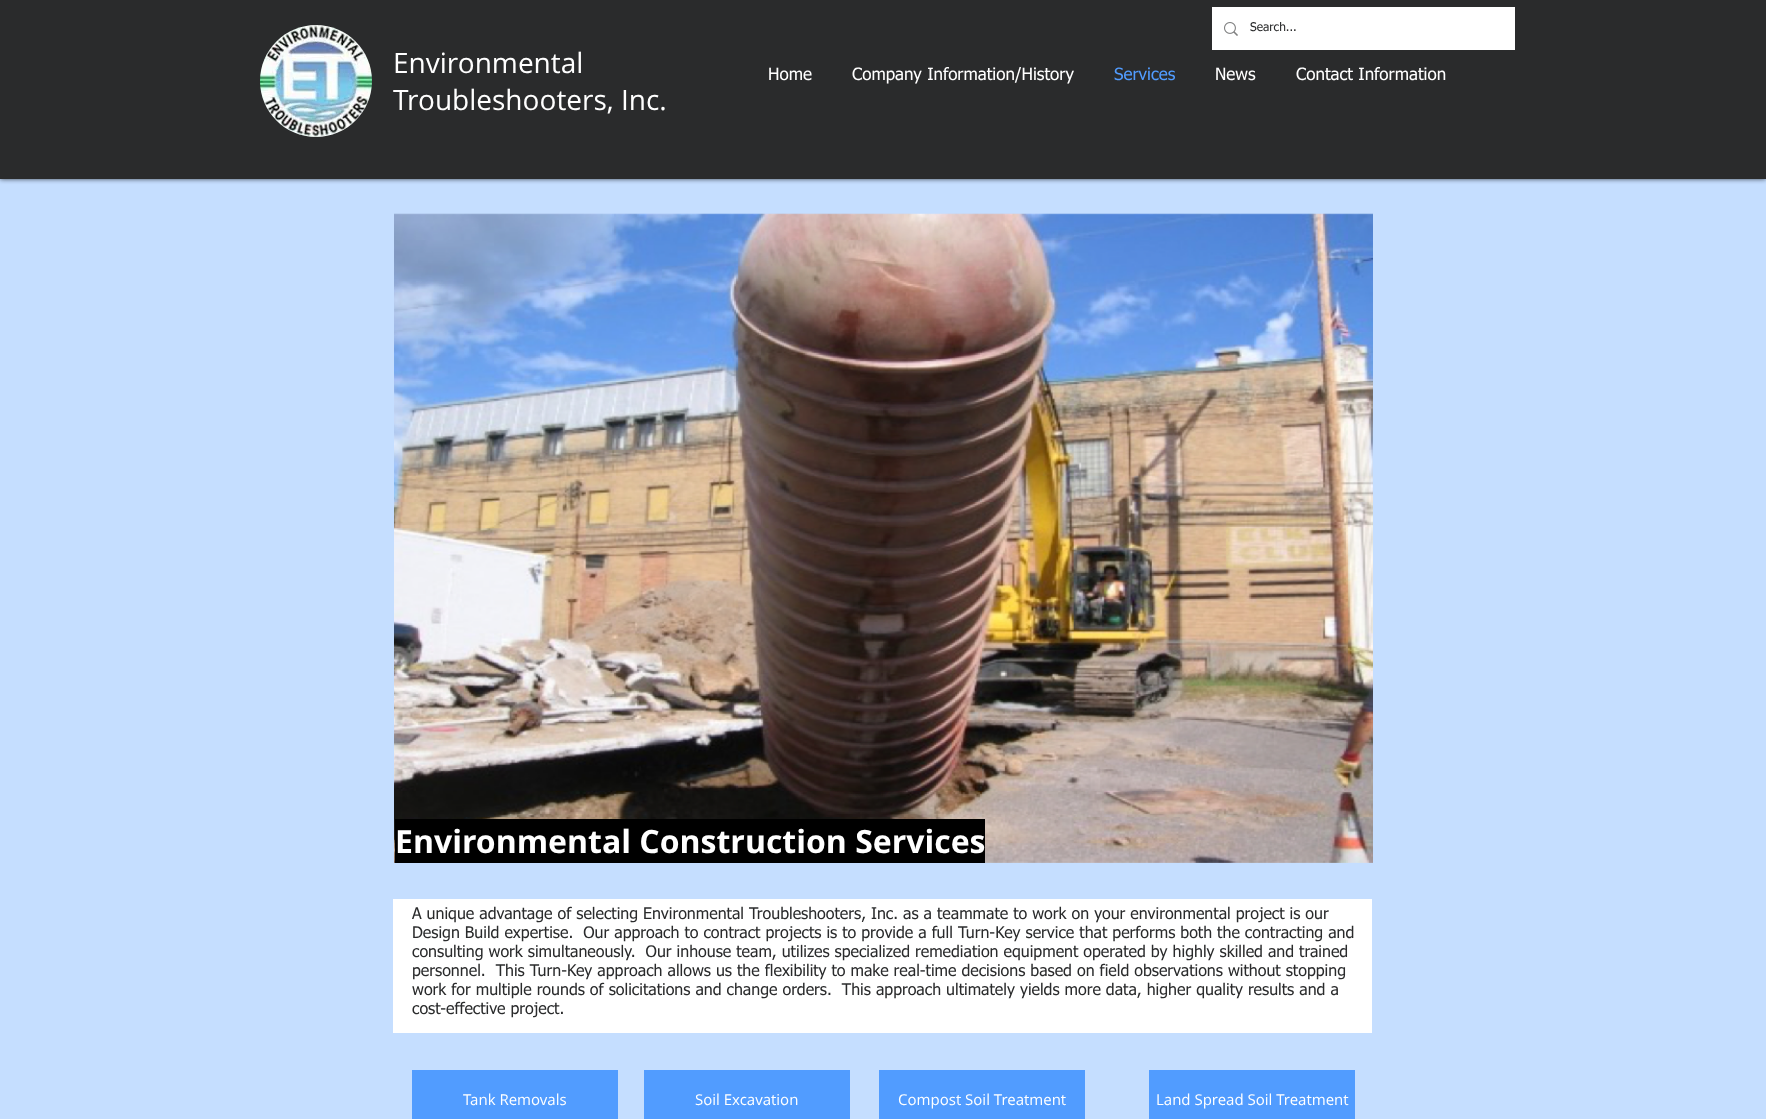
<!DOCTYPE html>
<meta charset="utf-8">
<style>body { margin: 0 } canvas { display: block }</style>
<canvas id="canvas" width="1766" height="1119"></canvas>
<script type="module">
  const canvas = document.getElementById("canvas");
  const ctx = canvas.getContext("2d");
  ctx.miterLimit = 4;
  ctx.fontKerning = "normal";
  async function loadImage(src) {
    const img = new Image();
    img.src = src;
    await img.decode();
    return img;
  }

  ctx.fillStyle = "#c5deff";
  ctx.fillRect(0, 0, 1766, 1119);
  ctx.fillStyle = "rgba(0, 0, 0, 0.7)";
  ctx.filter = "blur(2.5px)";
  ctx.beginPath();
  ctx.rect(0, 0, 1766, 179);
  ctx.fill();
  ctx.filter = "none";
  ctx.fillStyle = "#2a2b2c";
  ctx.fillRect(0, 0, 1766, 179);
  ctx.drawImage(await loadImage("img1.png"), 260, 25, 112, 112);
  ctx.font = "28px Open Sans";
  ctx.fillStyle = "#ffffff";
  ctx.fillText("Environmental", 393, 73);
  ctx.fillText("Troubleshooters, Inc.", 393, 110);
  ctx.fillRect(1212, 7, 303, 43);
  ctx.drawImage(await loadImage("img2.png"), 1224, 22, 14, 14);
  ctx.font = "12px tahoma";
  ctx.fillStyle = "#2a2b2c";
  ctx.fillText("Search...", 1250, 31);
  ctx.font = "17px tahoma";
  ctx.fillStyle = "#ffffff";
  ctx.fillText("Home", 768, 80);
  ctx.fillText("Company Information/History", 852, 80);
  ctx.fillStyle = "#519cff";
  ctx.fillText("Services", 1114, 80);
  ctx.fillStyle = "#ffffff";
  ctx.fillText("News", 1215, 80);
  ctx.fillText("Contact Information", 1296, 80);
  ctx.drawImage(await loadImage("img3.png"), 394, 213, 979, 650);
  ctx.fillStyle = "#000000";
  ctx.fillRect(395, 819, 590, 44);
  ctx.font = "bold 32px Open Sans";
  ctx.fillStyle = "#ffffff";
  ctx.fillText("Environmental Construction Services", 395, 853);
  ctx.fillRect(393, 899, 979, 134);
  ctx.font = "16px tahoma";
  ctx.fillStyle = "#2a2b2c";
  ctx.fillText("A unique advantage of selecting Environmental Troubleshooters, Inc. as a teammate to work on your environmental project is our", 412, 919);
  ctx.fillText("Design Build expertise.  Our approach to contract projects is to provide a full Turn-Key service that performs both the contracting and", 412, 938);
  ctx.fillText("consulting work simultaneously.  Our inhouse team, utilizes specialized remediation equipment operated by highly skilled and trained", 412, 957);
  ctx.fillText("personnel.  This Turn-Key approach allows us the flexibility to make real-time decisions based on field observations without stopping", 412, 976);
  ctx.fillText("work for multiple rounds of solicitations and change orders.  This approach ultimately yields more data, higher quality results and a", 412, 995);
  ctx.fillText("cost-effective project.", 412, 1014);
  ctx.fillStyle = "#519cff";
  ctx.fillRect(412, 1070, 206, 49);
  ctx.font = "15px Open Sans";
  ctx.fillStyle = "#ffffff";
  ctx.fillText("Tank Removals", 463, 1105);
  ctx.fillStyle = "#519cff";
  ctx.fillRect(644, 1070, 206, 49);
  ctx.fillStyle = "#ffffff";
  ctx.fillText("Soil Excavation", 695, 1105);
  ctx.fillStyle = "#519cff";
  ctx.fillRect(879, 1070, 206, 49);
  ctx.fillStyle = "#ffffff";
  ctx.fillText("Compost Soil Treatment", 898, 1105);
  ctx.fillStyle = "#519cff";
  ctx.fillRect(1149, 1070, 206, 49);
  ctx.fillStyle = "#ffffff";
  ctx.fillText("Land Spread Soil Treatment", 1156, 1105);
</script>
